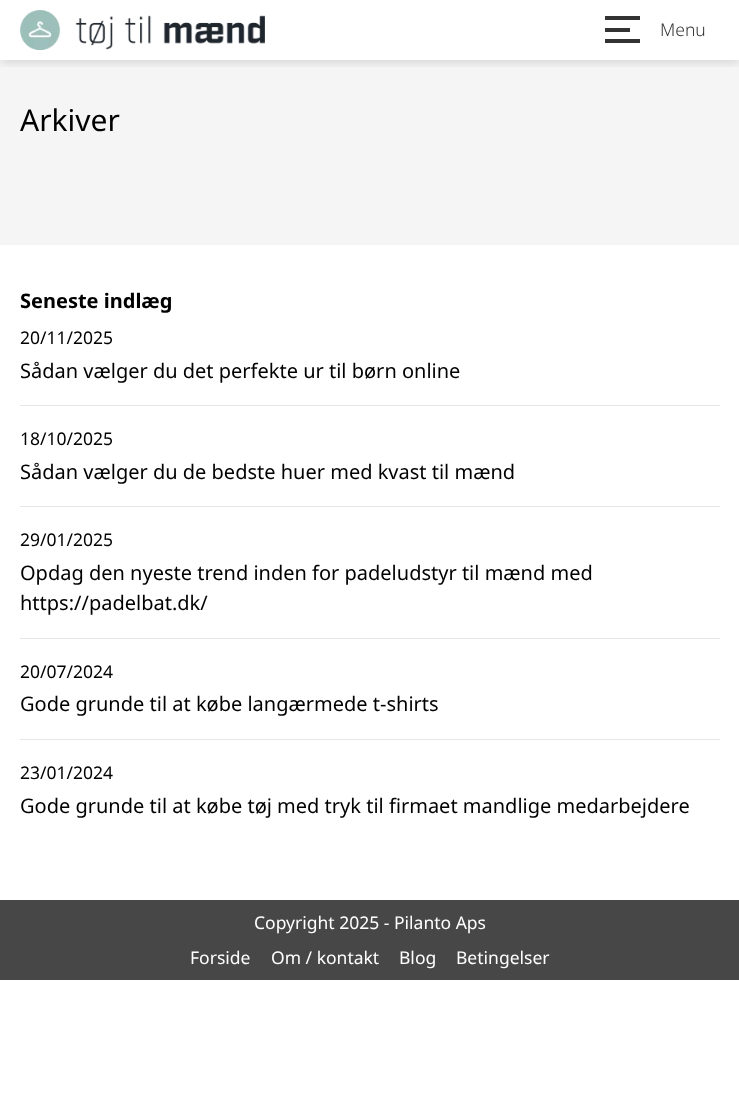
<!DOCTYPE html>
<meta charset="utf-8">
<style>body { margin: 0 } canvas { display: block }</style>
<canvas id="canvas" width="739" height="1117"></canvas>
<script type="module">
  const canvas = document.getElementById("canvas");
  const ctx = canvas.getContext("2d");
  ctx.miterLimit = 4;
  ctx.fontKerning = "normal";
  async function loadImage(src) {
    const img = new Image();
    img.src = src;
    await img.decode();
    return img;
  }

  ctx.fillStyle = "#ffffff";
  ctx.fillRect(0, 0, 739, 1117);
  ctx.fillStyle = "#f5f5f5";
  ctx.fillRect(0, 60, 739, 185);
  ctx.save();
  ctx.beginPath();
  ctx.rect(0, 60, 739, 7);
  ctx.clip();
  ctx.fillStyle = "rgba(0, 0, 0, 0.1)";
  ctx.filter = "blur(4px)";
  ctx.beginPath();
  ctx.rect(1, 6, 738, 58);
  ctx.fill();
  ctx.filter = "none";
  ctx.restore();
  ctx.drawImage(await loadImage("img1.png"), 20, 10, 245, 40);
  ctx.fillStyle = "#333333";
  ctx.fillRect(605, 16, 35, 4);
  ctx.fillRect(605, 28, 25, 4);
  ctx.fillRect(605, 39, 35, 4);
  ctx.font = "300 17.5px Noto Sans";
  ctx.fillText("Menu", 660, 36);
  ctx.font = "30px Noto Sans";
  ctx.fillStyle = "#000000";
  ctx.fillText("Arkiver", 20, 131);
  ctx.font = "bold 20px Noto Sans";
  ctx.fillText("Seneste indlæg", 20, 308);
  ctx.fillStyle = "#e5e7eb";
  ctx.fillRect(20, 405, 700, 1);
  ctx.font = "17.5px Noto Sans";
  ctx.fillStyle = "#000000";
  ctx.fillText("20/11/2025", 20, 344);
  ctx.font = "20px Noto Sans";
  ctx.fillText("Sådan vælger du det perfekte ur til børn online", 20, 378);
  ctx.fillStyle = "#e5e7eb";
  ctx.fillRect(20, 506, 700, 1);
  ctx.font = "17.5px Noto Sans";
  ctx.fillStyle = "#000000";
  ctx.fillText("18/10/2025", 20, 445);
  ctx.font = "20px Noto Sans";
  ctx.fillText("Sådan vælger du de bedste huer med kvast til mænd", 20, 479);
  ctx.fillStyle = "#e5e7eb";
  ctx.fillRect(20, 638, 700, 1);
  ctx.font = "17.5px Noto Sans";
  ctx.fillStyle = "#000000";
  ctx.fillText("29/01/2025", 20, 546);
  ctx.font = "20px Noto Sans";
  ctx.fillText("Opdag den nyeste trend inden for padeludstyr til mænd med", 20, 580);
  ctx.fillText("https://padelbat.dk/", 20, 610);
  ctx.fillStyle = "#e5e7eb";
  ctx.fillRect(20, 739, 700, 1);
  ctx.font = "17.5px Noto Sans";
  ctx.fillStyle = "#000000";
  ctx.fillText("20/07/2024", 20, 678);
  ctx.font = "20px Noto Sans";
  ctx.fillText("Gode grunde til at købe langærmede t-shirts", 20, 711);
  ctx.font = "17.5px Noto Sans";
  ctx.fillText("23/01/2024", 20, 779);
  ctx.font = "20px Noto Sans";
  ctx.fillText("Gode grunde til at købe tøj med tryk til firmaet mandlige medarbejdere", 20, 813);
  ctx.fillStyle = "#474747";
  ctx.fillRect(0, 900, 739, 80);
  ctx.font = "17.5px Noto Sans";
  ctx.fillStyle = "#ffffff";
  ctx.fillText("Copyright 2025 - Pilanto Aps", 254, 929);
  ctx.fillText("Forside", 190, 964);
  ctx.fillText("Om / kontakt", 271, 964);
  ctx.fillText("Blog", 399, 964);
  ctx.fillText("Betingelser", 456, 964);
</script>
